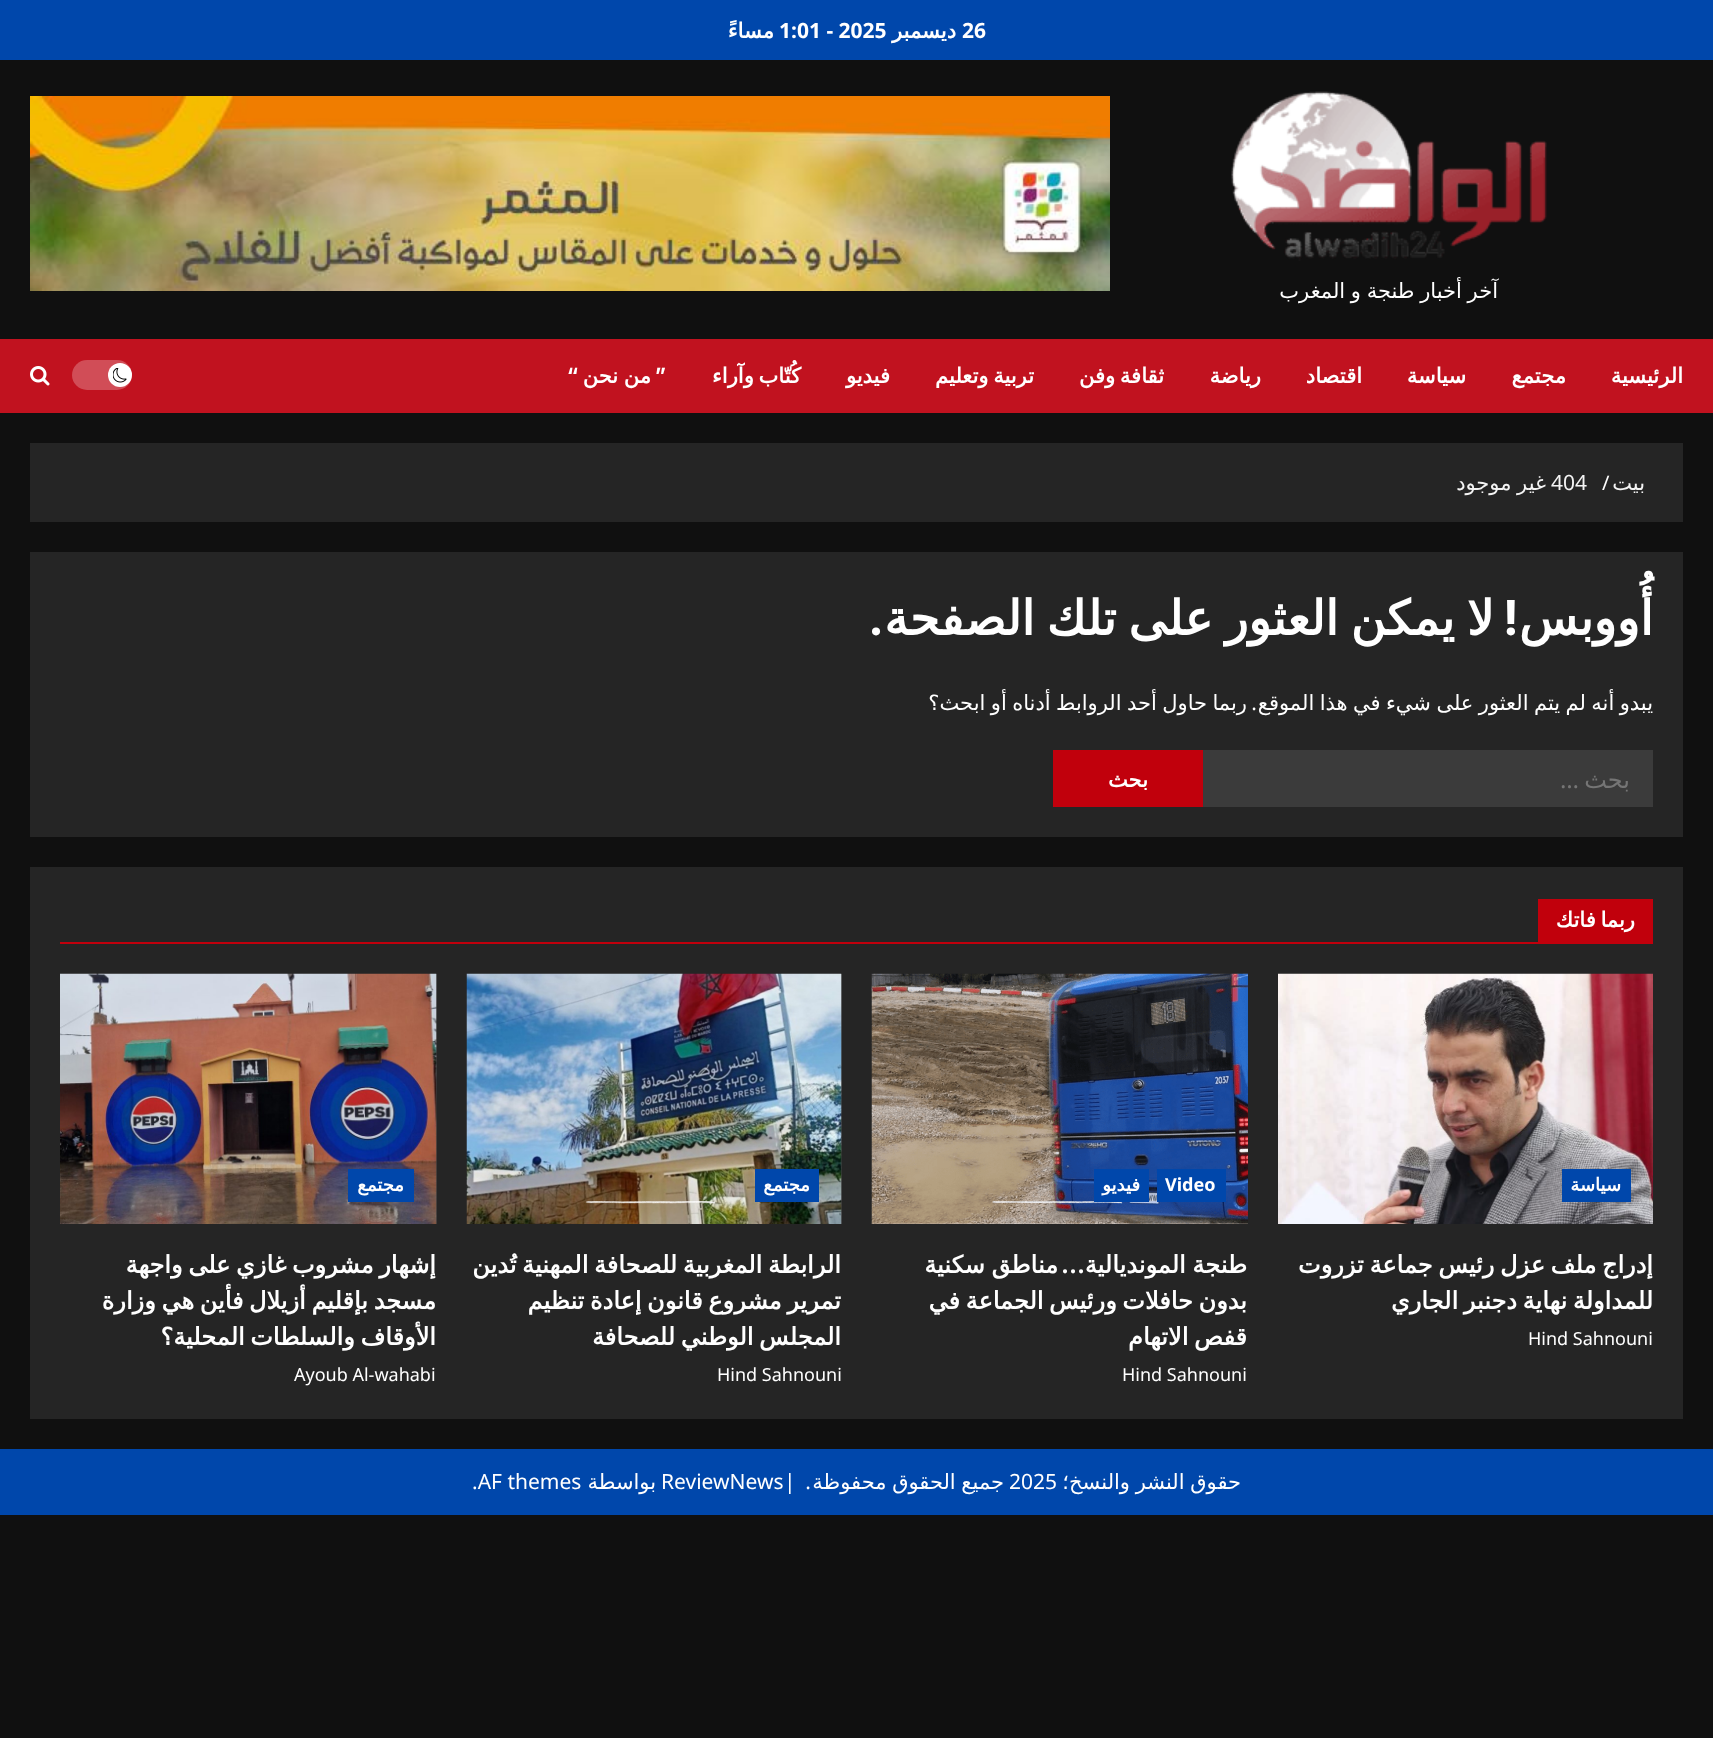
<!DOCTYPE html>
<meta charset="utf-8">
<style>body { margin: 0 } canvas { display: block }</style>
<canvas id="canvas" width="1713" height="1738"></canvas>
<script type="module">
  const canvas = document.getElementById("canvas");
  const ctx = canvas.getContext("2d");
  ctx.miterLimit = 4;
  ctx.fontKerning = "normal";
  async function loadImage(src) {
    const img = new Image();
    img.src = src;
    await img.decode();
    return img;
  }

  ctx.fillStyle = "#101010";
  ctx.fillRect(0, 0, 1713, 1738);
  ctx.fillStyle = "#0047ab";
  ctx.fillRect(0, 0, 1713, 60);
  ctx.font = "bold 21px Noto Sans";
  ctx.fillStyle = "#ffffff";
  ctx.fillText("26", 962, 38);
  ctx.direction = "rtl";
  ctx.font = "bold 21px DejaVu Sans";
  ctx.fillText("ديسمبر", 956, 38);
  ctx.direction = "ltr";
  ctx.font = "bold 21px Noto Sans";
  ctx.fillText("1:01 - 2025", 779, 38);
  ctx.direction = "rtl";
  ctx.font = "bold 21px DejaVu Sans";
  ctx.fillText("مساءً", 774, 38);
  ctx.drawImage(await loadImage("img1.png"), 1231, 91, 316, 170);
  ctx.wordSpacing = "-1px";
  ctx.font = "21px DejaVu Sans";
  ctx.fillText("آخر أخبار طنجة و المغرب", 1498, 298);
  ctx.drawImage(await loadImage("img2.png"), 30, 96, 1080, 195);
  ctx.fillStyle = "#c1121f";
  ctx.fillRect(0, 339, 1713, 74);
  ctx.wordSpacing = "0px";
  ctx.font = "bold 21px DejaVu Sans";
  ctx.fillStyle = "#ffffff";
  ctx.fillText("الرئيسية", 1683, 383);
  ctx.fillText("مجتمع", 1566, 383);
  ctx.fillText("سياسة", 1466, 383);
  ctx.fillText("اقتصاد", 1362, 383);
  ctx.fillText("رياضة", 1261, 383);
  ctx.wordSpacing = "-2px";
  ctx.fillText("ثقافة وفن", 1164, 383);
  ctx.fillText("تربية وتعليم", 1034, 383);
  ctx.wordSpacing = "0px";
  ctx.fillText("فيديو", 890, 383);
  ctx.wordSpacing = "-2px";
  ctx.fillText("كُتّاب وآراء", 801, 383);
  ctx.wordSpacing = "0px";
  ctx.font = "bold 21px Inter";
  ctx.fillText("”", 666, 383);
  ctx.fillText("“", 578, 383);
  ctx.wordSpacing = "-1px";
  ctx.font = "bold 21px DejaVu Sans";
  ctx.fillText("من نحن", 651, 383);
  ctx.fillStyle = "#d14d57";
  ctx.beginPath();
  ctx.roundRect(72, 360, 60, 30, 15);
  ctx.fill();
  ctx.fillStyle = "#ffffff";
  ctx.beginPath();
  ctx.arc(120, 375, 12, 0, Math.PI * 2);
  ctx.fill();
  ctx.drawImage(await loadImage("img3.png"), 113, 368, 14, 15);
  ctx.drawImage(await loadImage("img4.png"), 30, 366, 20, 20);
  ctx.fillStyle = "#252525";
  ctx.fillRect(30, 443, 1653, 79);
  ctx.wordSpacing = "0px";
  ctx.font = "21px DejaVu Sans";
  ctx.fillStyle = "#f4f4f4";
  ctx.fillText("بيت", 1645, 490);
  ctx.direction = "ltr";
  ctx.font = "20px Noto Sans";
  ctx.fillStyle = "#ffffff";
  ctx.fillText("/", 1602, 490);
  ctx.font = "21px Noto Sans";
  ctx.fillStyle = "#f4f4f4";
  ctx.fillText("404", 1551, 490);
  ctx.wordSpacing = "-1px";
  ctx.direction = "rtl";
  ctx.font = "21px DejaVu Sans";
  ctx.fillText("غير موجود", 1546, 490);
  ctx.fillStyle = "#252525";
  ctx.fillRect(30, 552, 1653, 285);
  ctx.wordSpacing = "0px";
  ctx.font = "bold 48px DejaVu Sans";
  ctx.fillStyle = "#ffffff";
  ctx.fillText("أُووبس", 1653, 635);
  ctx.font = "bold 48px Inter";
  ctx.fillText("!", 1519, 635);
  ctx.wordSpacing = "-3.25px";
  ctx.font = "bold 48px DejaVu Sans";
  ctx.fillText("لا يمكن العثور على تلك الصفحة", 1494, 635);
  ctx.wordSpacing = "0px";
  ctx.font = "bold 48px Inter";
  ctx.fillText(".", 884, 635);
  ctx.wordSpacing = "-1.25px";
  ctx.font = "21px DejaVu Sans";
  ctx.fillText("يبدو أنه لم يتم العثور على شيء في هذا الموقع", 1653, 710);
  ctx.wordSpacing = "0px";
  ctx.font = "21px Noto Sans";
  ctx.fillText(".", 1257, 710);
  ctx.wordSpacing = "-1.25px";
  ctx.font = "21px DejaVu Sans";
  ctx.fillText("ربما حاول أحد الروابط أدناه أو ابحث؟", 1247, 710);
  ctx.fillStyle = "#3b3b3b";
  ctx.fillRect(1203, 750, 450, 57);
  ctx.wordSpacing = "0px";
  ctx.font = "24px DejaVu Sans";
  ctx.fillStyle = "#757575";
  ctx.fillText("بحث", 1630, 788);
  ctx.font = "24px Noto Sans";
  ctx.fillText("…", 1579, 788);
  ctx.fillStyle = "#c1000c";
  ctx.fillRect(1053, 750, 150, 57);
  ctx.font = "bold 21px DejaVu Sans";
  ctx.fillStyle = "#ffffff";
  ctx.fillText("بحث", 1148, 787);
  ctx.fillStyle = "#252525";
  ctx.fillRect(30, 867, 1653, 552);
  ctx.fillStyle = "#c1000c";
  ctx.fillRect(60, 942, 1593, 2);
  ctx.fillRect(1538, 899, 115, 43);
  ctx.wordSpacing = "-2px";
  ctx.fillStyle = "#ffffff";
  ctx.fillText("ربما فاتك", 1635, 927);
  ctx.drawImage(await loadImage("img5.png"), 1278, 973, 375, 251);
  ctx.fillStyle = "#0047ab";
  ctx.fillRect(1562, 1169, 69, 33);
  ctx.wordSpacing = "0px";
  ctx.font = "bold 18px DejaVu Sans";
  ctx.fillStyle = "#ffffff";
  ctx.fillText("سياسة", 1621, 1191);
  ctx.wordSpacing = "-2px";
  ctx.font = "bold 24px DejaVu Sans";
  ctx.fillText("إدراج ملف عزل رئيس جماعة تزروت", 1653, 1273);
  ctx.fillText("للمداولة نهاية دجنبر الجاري", 1653, 1309);
  ctx.wordSpacing = "0px";
  ctx.direction = "ltr";
  ctx.font = "18px Noto Sans";
  ctx.fillText("Hind Sahnouni", 1528, 1345);
  ctx.drawImage(await loadImage("img6.png"), 871, 973, 377, 251);
  ctx.fillStyle = "#0047ab";
  ctx.fillRect(1157, 1169, 69, 33);
  ctx.font = "bold 18px Noto Sans";
  ctx.fillStyle = "#ffffff";
  ctx.fillText("Video", 1165, 1191);
  ctx.fillStyle = "#0047ab";
  ctx.fillRect(1094, 1169, 55, 33);
  ctx.direction = "rtl";
  ctx.font = "bold 18px DejaVu Sans";
  ctx.fillStyle = "#ffffff";
  ctx.fillText("فيديو", 1140, 1191);
  ctx.wordSpacing = "-1px";
  ctx.font = "bold 24px DejaVu Sans";
  ctx.fillText("طنجة المونديالية", 1247, 1273);
  ctx.wordSpacing = "0px";
  ctx.font = "bold 24px Inter";
  ctx.fillText("…", 1085, 1273);
  ctx.wordSpacing = "-1px";
  ctx.font = "bold 24px DejaVu Sans";
  ctx.fillText("مناطق سكنية", 1058, 1273);
  ctx.wordSpacing = "-2px";
  ctx.fillText("بدون حافلات ورئيس الجماعة في", 1247, 1309);
  ctx.fillText("قفص الاتهام", 1247, 1345);
  ctx.wordSpacing = "0px";
  ctx.direction = "ltr";
  ctx.font = "18px Noto Sans";
  ctx.fillText("Hind Sahnouni", 1122, 1381);
  ctx.fillStyle = "#3a3a3a";
  ctx.fillRect(841, 974, 1, 250);
  ctx.drawImage(await loadImage("img7.png"), 466, 973, 376, 251);
  ctx.fillStyle = "#0047ab";
  ctx.fillRect(755, 1169, 64, 33);
  ctx.direction = "rtl";
  ctx.font = "bold 18px DejaVu Sans";
  ctx.fillStyle = "#ffffff";
  ctx.fillText("مجتمع", 810, 1191);
  ctx.wordSpacing = "-2px";
  ctx.font = "bold 24px DejaVu Sans";
  ctx.fillText("الرابطة المغربية للصحافة المهنية تُدين", 841, 1273);
  ctx.fillText("تمرير مشروع قانون إعادة تنظيم", 841, 1309);
  ctx.fillText("المجلس الوطني للصحافة", 841, 1345);
  ctx.wordSpacing = "0px";
  ctx.direction = "ltr";
  ctx.font = "18px Noto Sans";
  ctx.fillText("Hind Sahnouni", 717, 1381);
  ctx.fillStyle = "#3a3a3a";
  ctx.fillRect(436, 974, 1, 250);
  ctx.drawImage(await loadImage("img8.png"), 60, 973, 377, 251);
  ctx.fillStyle = "#0047ab";
  ctx.fillRect(348, 1169, 66, 33);
  ctx.direction = "rtl";
  ctx.font = "bold 18px DejaVu Sans";
  ctx.fillStyle = "#ffffff";
  ctx.fillText("مجتمع", 404, 1191);
  ctx.wordSpacing = "-2px";
  ctx.font = "bold 24px DejaVu Sans";
  ctx.fillText("إشهار مشروب غازي على واجهة", 436, 1273);
  ctx.fillText("مسجد بإقليم أزيلال فأين هي وزارة", 436, 1309);
  ctx.fillText("الأوقاف والسلطات المحلية؟", 436, 1345);
  ctx.wordSpacing = "0px";
  ctx.direction = "ltr";
  ctx.font = "18px Noto Sans";
  ctx.fillText("Ayoub Al-wahabi", 294, 1381);
  ctx.fillStyle = "#0047ab";
  ctx.fillRect(0, 1449, 1713, 66);
  ctx.wordSpacing = "-1px";
  ctx.direction = "rtl";
  ctx.font = "21px DejaVu Sans";
  ctx.fillStyle = "#ffffff";
  ctx.fillText("حقوق النشر والنسخ؛", 1241, 1489);
  ctx.wordSpacing = "0px";
  ctx.direction = "ltr";
  ctx.font = "21px Noto Sans";
  ctx.fillText("2025", 1009, 1489);
  ctx.wordSpacing = "-1px";
  ctx.direction = "rtl";
  ctx.font = "21px DejaVu Sans";
  ctx.fillText("جميع الحقوق محفوظة", 1004, 1489);
  ctx.wordSpacing = "0px";
  ctx.font = "21px Noto Sans";
  ctx.fillText(".", 811, 1489);
  ctx.direction = "ltr";
  ctx.fillText("|", 784, 1489);
  ctx.fillText("ReviewNews", 661, 1489);
  ctx.direction = "rtl";
  ctx.font = "21px DejaVu Sans";
  ctx.fillText("بواسطة", 656, 1489);
  ctx.direction = "ltr";
  ctx.font = "21px Noto Sans";
  ctx.fillText(".AF themes", 472, 1489);
</script>
